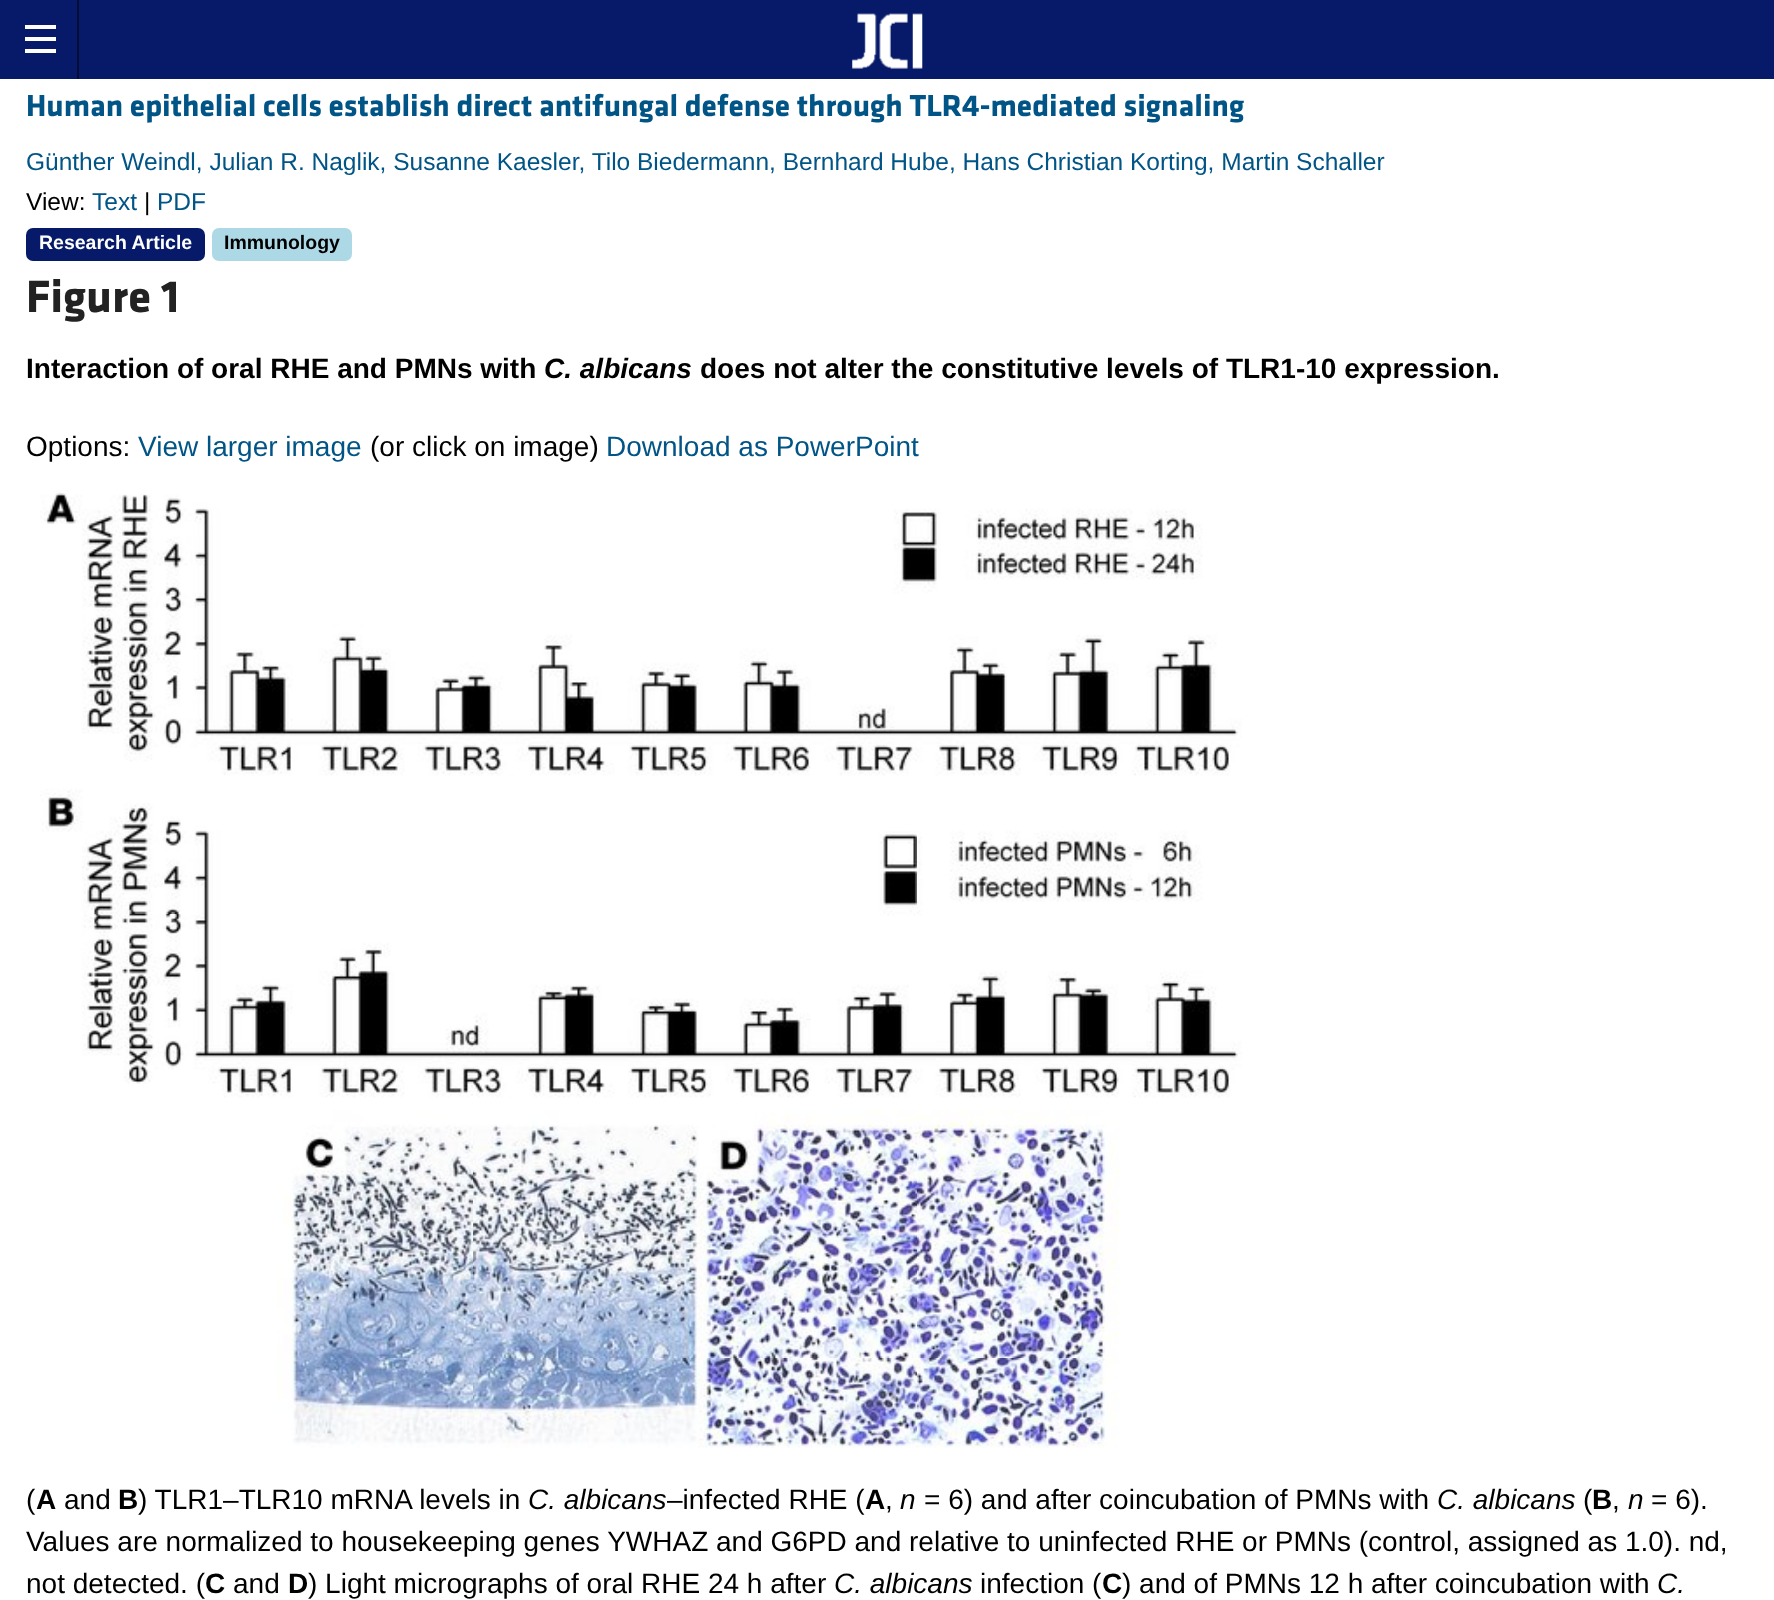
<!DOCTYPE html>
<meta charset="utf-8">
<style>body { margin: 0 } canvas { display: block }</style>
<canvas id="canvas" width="1774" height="1600"></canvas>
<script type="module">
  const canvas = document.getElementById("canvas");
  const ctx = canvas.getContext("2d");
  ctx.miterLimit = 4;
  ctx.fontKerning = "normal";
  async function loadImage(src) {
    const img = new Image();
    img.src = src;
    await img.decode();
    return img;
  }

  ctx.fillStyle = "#ffffff";
  ctx.fillRect(0, 0, 1774, 1600);
  ctx.fillStyle = "#071a69";
  ctx.fillRect(0, 0, 1774, 79);
  ctx.fillStyle = "#040d35";
  ctx.fillRect(77, 0, 2, 79);
  ctx.fillStyle = "#ffffff";
  ctx.fillRect(25, 49, 31, 4);
  ctx.fillRect(25, 37, 31, 4);
  ctx.fillRect(25, 25, 31, 4);
  ctx.drawImage(await loadImage("img1.png"), 852, 13, 71, 56);
  ctx.font = "bold 31.5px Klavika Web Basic";
  ctx.fillStyle = "#015486";
  ctx.fillText("Human epithelial cells establish direct antifungal defense through TLR4-mediated signaling", 26, 116);
  ctx.font = "24.5px Liberation Sans";
  ctx.fillText("Günther Weindl, Julian R. Naglik, Susanne Kaesler, Tilo Biedermann, Bernhard Hube, Hans Christian Korting, Martin Schaller", 26, 170);
  ctx.fillStyle = "#000000";
  ctx.fillText("View:", 26, 210);
  ctx.fillStyle = "#015486";
  ctx.fillText("Text", 92, 210);
  ctx.fillStyle = "#000000";
  ctx.fillText("|", 144, 210);
  ctx.fillStyle = "#015486";
  ctx.fillText("PDF", 157, 210);
  ctx.fillStyle = "#071a69";
  ctx.beginPath();
  ctx.roundRect(26, 228, 179, 33, 7);
  ctx.fill();
  ctx.font = "bold 19.5px Liberation Sans";
  ctx.fillStyle = "#ffffff";
  ctx.fillText("Research Article", 39, 249);
  ctx.fillStyle = "#add8e6";
  ctx.beginPath();
  ctx.roundRect(212, 228, 140, 33, 7);
  ctx.fill();
  ctx.fillStyle = "#000000";
  ctx.fillText("Immunology", 224, 249);
  ctx.font = "bold 47px Klavika Web Basic";
  ctx.fillStyle = "#222222";
  ctx.fillText("Figure 1", 26, 312);
  ctx.font = "bold 28px Liberation Sans";
  ctx.fillStyle = "#000000";
  ctx.fillText("Interaction of oral RHE and PMNs with", 26, 378);
  ctx.font = "italic bold 28px Liberation Sans";
  ctx.fillText("C. albicans", 544, 378);
  ctx.font = "bold 28px Liberation Sans";
  ctx.fillText("does not alter the constitutive levels of TLR1-10 expression.", 700, 378);
  ctx.font = "28px Liberation Sans";
  ctx.fillText("Options:", 26, 456);
  ctx.fillStyle = "#015486";
  ctx.fillText("View larger image", 138, 456);
  ctx.fillStyle = "#000000";
  ctx.fillText("(or click on image)", 370, 456);
  ctx.fillStyle = "#015486";
  ctx.fillText("Download as PowerPoint", 606, 456);
  ctx.drawImage(await loadImage("img2.png"), 40, 490, 1202, 958);
  ctx.fillStyle = "#000000";
  ctx.fillText("(", 26, 1509);
  ctx.font = "bold 28px Liberation Sans";
  ctx.fillText("A", 36, 1509);
  ctx.font = "28px Liberation Sans";
  ctx.fillText("and", 64, 1509);
  ctx.font = "bold 28px Liberation Sans";
  ctx.fillText("B", 118, 1509);
  ctx.font = "28px Liberation Sans";
  ctx.fillText(") TLR1–TLR10 mRNA levels in", 138, 1509);
  ctx.font = "italic 28px Liberation Sans";
  ctx.fillText("C. albicans", 528, 1509);
  ctx.font = "28px Liberation Sans";
  ctx.fillText("–infected RHE (", 667, 1509);
  ctx.font = "bold 28px Liberation Sans";
  ctx.fillText("A", 865, 1509);
  ctx.font = "28px Liberation Sans";
  ctx.fillText(",", 885, 1509);
  ctx.font = "italic 28px Liberation Sans";
  ctx.fillText("n", 900, 1509);
  ctx.font = "28px Liberation Sans";
  ctx.fillText("= 6) and after coincubation of PMNs with", 924, 1509);
  ctx.font = "italic 28px Liberation Sans";
  ctx.fillText("C. albicans", 1437, 1509);
  ctx.font = "28px Liberation Sans";
  ctx.fillText("(", 1583, 1509);
  ctx.font = "bold 28px Liberation Sans";
  ctx.fillText("B", 1592, 1509);
  ctx.font = "28px Liberation Sans";
  ctx.fillText(",", 1612, 1509);
  ctx.font = "italic 28px Liberation Sans";
  ctx.fillText("n", 1628, 1509);
  ctx.font = "28px Liberation Sans";
  ctx.fillText("= 6).", 1651, 1509);
  ctx.fillText("Values are normalized to housekeeping genes YWHAZ and G6PD and relative to uninfected RHE or PMNs (control, assigned as 1.0). nd,", 26, 1551);
  ctx.fillText("not detected. (", 26, 1593);
  ctx.font = "bold 28px Liberation Sans";
  ctx.fillText("C", 205, 1593);
  ctx.font = "28px Liberation Sans";
  ctx.fillText("and", 233, 1593);
  ctx.font = "bold 28px Liberation Sans";
  ctx.fillText("D", 288, 1593);
  ctx.font = "28px Liberation Sans";
  ctx.fillText(") Light micrographs of oral RHE 24 h after", 308, 1593);
  ctx.font = "italic 28px Liberation Sans";
  ctx.fillText("C. albicans", 834, 1593);
  ctx.font = "28px Liberation Sans";
  ctx.fillText("infection (", 980, 1593);
  ctx.font = "bold 28px Liberation Sans";
  ctx.fillText("C", 1102, 1593);
  ctx.font = "28px Liberation Sans";
  ctx.fillText(") and of PMNs 12 h after coincubation with", 1122, 1593);
  ctx.font = "italic 28px Liberation Sans";
  ctx.fillText("C.", 1657, 1593);
</script>
